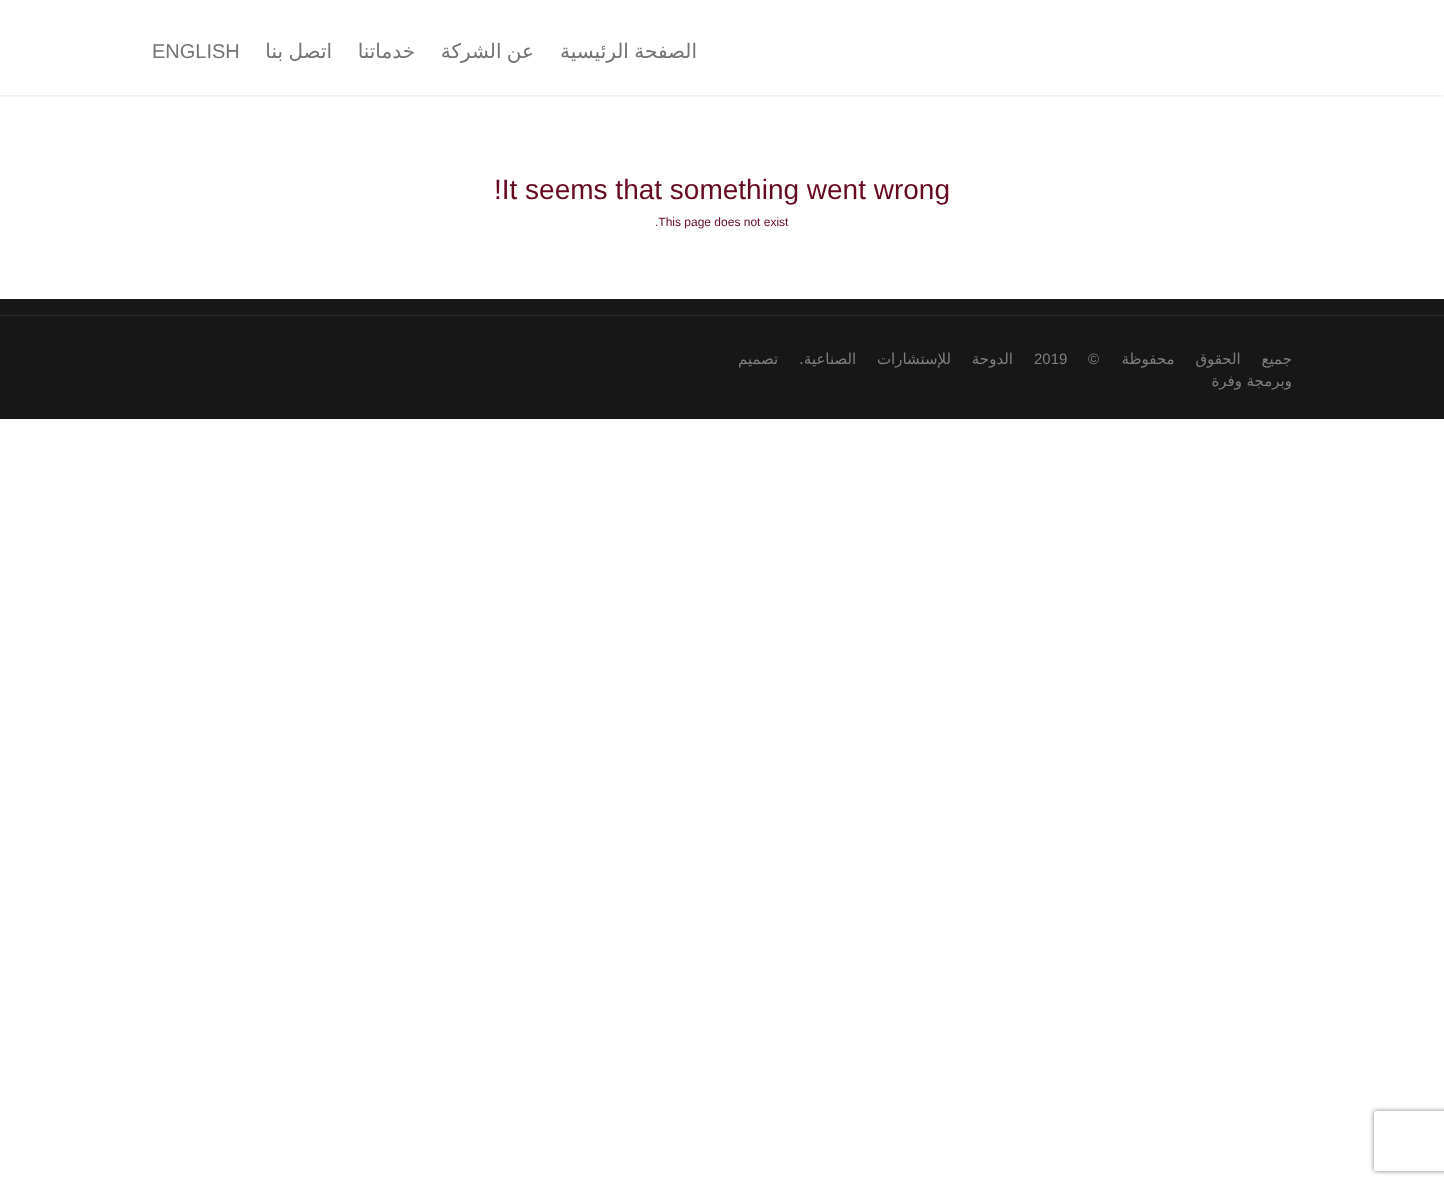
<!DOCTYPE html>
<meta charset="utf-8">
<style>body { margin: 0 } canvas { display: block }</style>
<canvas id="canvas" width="1444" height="1185"></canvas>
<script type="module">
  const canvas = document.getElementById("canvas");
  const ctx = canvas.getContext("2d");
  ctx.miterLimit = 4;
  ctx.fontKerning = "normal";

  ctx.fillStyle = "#ffffff";
  ctx.fillRect(0, 0, 1444, 1185);
  ctx.save();
  ctx.beginPath();
  ctx.rect(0, 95, 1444, 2);
  ctx.clip();
  ctx.fillStyle = "rgba(0, 0, 0, 0.15)";
  ctx.filter = "blur(2px)";
  ctx.beginPath();
  ctx.rect(-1, 0, 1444, 95);
  ctx.fill();
  ctx.filter = "none";
  ctx.restore();
  ctx.wordSpacing = "-1px";
  ctx.direction = "rtl";
  ctx.font = "20px DejaVu Sans";
  ctx.fillStyle = "#737373";
  ctx.fillText("الصفحة الرئيسية", 697, 58);
  ctx.fillText("عن الشركة", 534, 58);
  ctx.wordSpacing = "0px";
  ctx.fillText("خدماتنا", 415, 58);
  ctx.wordSpacing = "-1px";
  ctx.fillText("اتصل بنا", 332, 58);
  ctx.wordSpacing = "0px";
  ctx.direction = "ltr";
  ctx.font = "20px Liberation Sans";
  ctx.fillText("ENGLISH", 152, 58);
  ctx.font = "28px Liberation Sans";
  ctx.fillStyle = "#670821";
  ctx.fillText("!It seems that something went wrong", 494, 199);
  ctx.font = "12px Liberation Sans";
  ctx.fillText(".This page does not exist", 655, 226);
  ctx.fillStyle = "#171717";
  ctx.fillRect(0, 299, 1444, 120);
  ctx.fillStyle = "#2e2e2e";
  ctx.fillRect(0, 315, 1444, 1);
  ctx.wordSpacing = "16px";
  ctx.direction = "rtl";
  ctx.font = "15px DejaVu Sans";
  ctx.fillStyle = "#7f7f7f";
  ctx.fillText("جميع الحقوق محفوظة", 1292, 364);
  ctx.wordSpacing = "0px";
  ctx.direction = "ltr";
  ctx.font = "15px Liberation Sans";
  ctx.fillText("©", 1088, 364);
  ctx.fillText("2019", 1034, 364);
  ctx.wordSpacing = "16px";
  ctx.direction = "rtl";
  ctx.font = "15px DejaVu Sans";
  ctx.fillText("الدوحة للإستشارات الصناعية. تصميم", 1013, 364);
  ctx.wordSpacing = "0px";
  ctx.fillText("وبرمجة", 1292, 386);
  ctx.fillText("وفرة", 1242, 386);
  ctx.save();
  ctx.beginPath();
  ctx.moveTo(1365, 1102);
  ctx.lineTo(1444, 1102);
  ctx.lineTo(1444, 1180);
  ctx.lineTo(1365, 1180);
  ctx.closePath();
  ctx.moveTo(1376, 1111);
  ctx.lineTo(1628, 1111);
  ctx.bezierCurveTo(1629, 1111, 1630, 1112, 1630, 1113);
  ctx.lineTo(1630, 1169);
  ctx.bezierCurveTo(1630, 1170, 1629, 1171, 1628, 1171);
  ctx.lineTo(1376, 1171);
  ctx.bezierCurveTo(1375, 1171, 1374, 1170, 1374, 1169);
  ctx.lineTo(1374, 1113);
  ctx.bezierCurveTo(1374, 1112, 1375, 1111, 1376, 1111);
  ctx.closePath();
  ctx.clip("evenodd");
  ctx.fillStyle = "#808080";
  ctx.filter = "blur(2.5px)";
  ctx.beginPath();
  ctx.roundRect(1374, 1111, 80, 60, 2);
  ctx.fill();
  ctx.filter = "none";
  ctx.restore();
</script>
